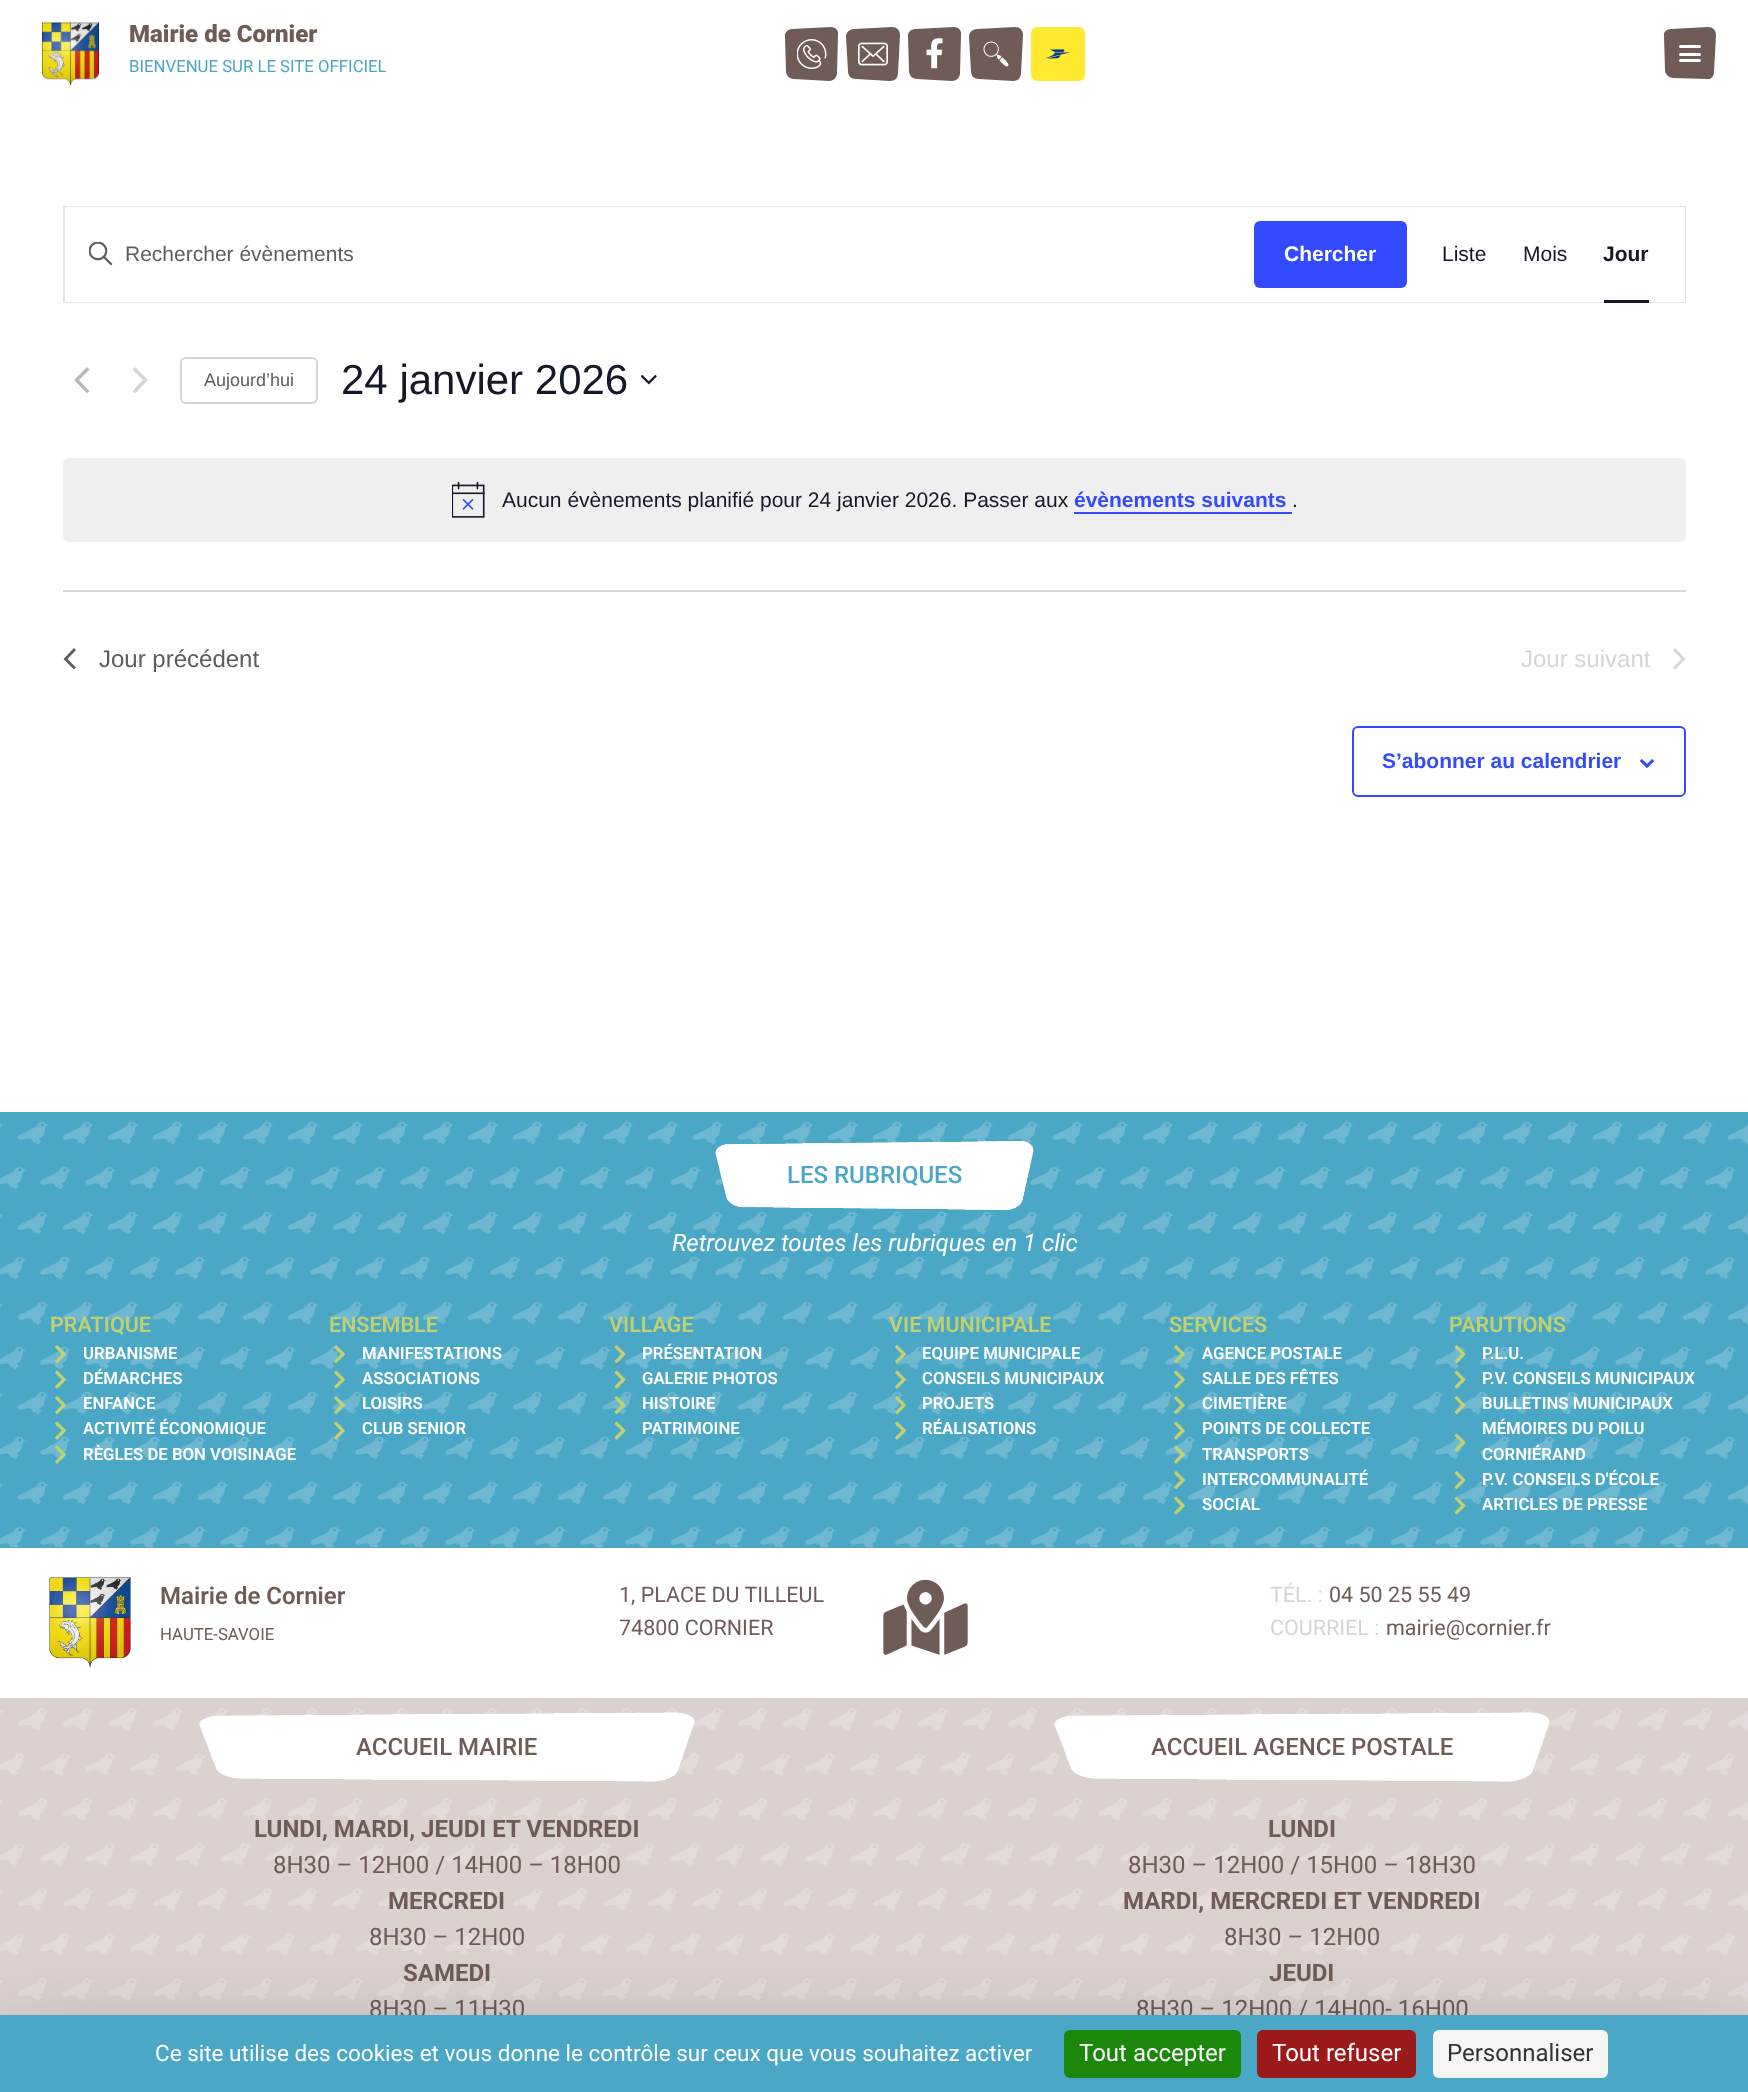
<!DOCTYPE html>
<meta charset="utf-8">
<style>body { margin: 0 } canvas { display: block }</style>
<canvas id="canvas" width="1748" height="2092"></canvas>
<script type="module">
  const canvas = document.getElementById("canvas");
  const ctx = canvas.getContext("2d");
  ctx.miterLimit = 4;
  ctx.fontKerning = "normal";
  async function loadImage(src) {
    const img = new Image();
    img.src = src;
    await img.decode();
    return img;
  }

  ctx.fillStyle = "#ffffff";
  ctx.fillRect(0, 0, 1748, 2092);
  ctx.drawImage(await loadImage("img1.png"), 42, 22, 57, 64);
  ctx.font = "900 24px Roboto";
  ctx.fillStyle = "#6f5c57";
  ctx.fillText("Mairie de Cornier", 129, 42);
  ctx.font = "16.75px Roboto";
  ctx.fillStyle = "#4ba7c6";
  ctx.fillText("BIENVENUE SUR LE SITE OFFICIEL", 129, 72);
  ctx.fillStyle = "#6f5c57";
  ctx.beginPath();
  ctx.moveTo(829, 81);
  ctx.lineTo(794, 79);
  ctx.bezierCurveTo(790, 79, 786, 76, 786, 71);
  ctx.lineTo(785, 37);
  ctx.bezierCurveTo(784, 33, 788, 29, 792, 29);
  ctx.lineTo(831, 27);
  ctx.bezierCurveTo(835, 27, 839, 30, 838, 35);
  ctx.lineTo(837, 73);
  ctx.bezierCurveTo(837, 78, 833, 81, 829, 81);
  ctx.closePath();
  ctx.fill();
  ctx.drawImage(await loadImage("img2.png"), 797, 39, 30, 30);
  ctx.beginPath();
  ctx.moveTo(890, 81);
  ctx.lineTo(856, 79);
  ctx.bezierCurveTo(851, 79, 848, 76, 848, 71);
  ctx.lineTo(846, 37);
  ctx.bezierCurveTo(846, 33, 849, 29, 854, 29);
  ctx.lineTo(892, 27);
  ctx.bezierCurveTo(897, 27, 900, 30, 900, 35);
  ctx.lineTo(898, 73);
  ctx.bezierCurveTo(898, 78, 895, 81, 890, 81);
  ctx.closePath();
  ctx.fill();
  ctx.drawImage(await loadImage("img3.png"), 858, 42, 30, 24);
  ctx.beginPath();
  ctx.moveTo(952, 81);
  ctx.lineTo(917, 79);
  ctx.bezierCurveTo(913, 79, 909, 76, 909, 71);
  ctx.lineTo(908, 37);
  ctx.bezierCurveTo(907, 33, 911, 29, 915, 29);
  ctx.lineTo(954, 27);
  ctx.bezierCurveTo(958, 27, 962, 30, 961, 35);
  ctx.lineTo(960, 73);
  ctx.bezierCurveTo(960, 78, 956, 81, 952, 81);
  ctx.closePath();
  ctx.fill();
  ctx.drawImage(await loadImage("img4.png"), 926, 38, 17, 31);
  ctx.beginPath();
  ctx.moveTo(1013, 81);
  ctx.lineTo(979, 79);
  ctx.bezierCurveTo(974, 79, 971, 76, 971, 71);
  ctx.lineTo(969, 37);
  ctx.bezierCurveTo(969, 33, 972, 29, 977, 29);
  ctx.lineTo(1015, 27);
  ctx.bezierCurveTo(1020, 27, 1023, 30, 1023, 35);
  ctx.lineTo(1021, 73);
  ctx.bezierCurveTo(1021, 78, 1018, 81, 1013, 81);
  ctx.closePath();
  ctx.fill();
  ctx.drawImage(await loadImage("img5.png"), 983, 41, 26, 26);
  ctx.fillStyle = "#ffea31";
  ctx.beginPath();
  ctx.roundRect(1031, 27, 54, 54, 6);
  ctx.fill();
  ctx.drawImage(await loadImage("img6.png"), 1045, 49, 25, 10);
  ctx.fillStyle = "#6f5c57";
  ctx.beginPath();
  ctx.moveTo(1707, 79);
  ctx.lineTo(1673, 78);
  ctx.bezierCurveTo(1669, 78, 1665, 74, 1665, 70);
  ctx.lineTo(1664, 36);
  ctx.bezierCurveTo(1663, 32, 1667, 29, 1671, 29);
  ctx.lineTo(1708, 27);
  ctx.bezierCurveTo(1713, 27, 1716, 30, 1716, 35);
  ctx.lineTo(1714, 72);
  ctx.bezierCurveTo(1714, 76, 1711, 80, 1707, 79);
  ctx.closePath();
  ctx.fill();
  ctx.fillStyle = "#ffffff";
  ctx.beginPath();
  ctx.roundRect(1679, 53, 22, 3, 1.5);
  ctx.fill();
  ctx.beginPath();
  ctx.roundRect(1679, 45, 22, 3, 1.5);
  ctx.fill();
  ctx.beginPath();
  ctx.roundRect(1679, 59, 22, 3, 1.5);
  ctx.fill();
  ctx.strokeStyle = "#e4e4e4";
  ctx.lineWidth = 2;
  ctx.strokeRect(64, 207, 1621, 95);
  ctx.fillRect(65, 207, 1620, 95);
  ctx.drawImage(await loadImage("img7.png"), 89, 242, 24, 24);
  ctx.font = "21px Liberation Sans";
  ctx.fillStyle = "#5d5d5d";
  ctx.fillText("Rechercher évènements", 125, 261);
  ctx.fillStyle = "#334aff";
  ctx.beginPath();
  ctx.roundRect(1254, 221, 153, 67, 6);
  ctx.fill();
  ctx.font = "bold 21px Liberation Sans";
  ctx.fillStyle = "#ffffff";
  ctx.fillText("Chercher", 1284, 261);
  ctx.font = "21px Liberation Sans";
  ctx.fillStyle = "#141827";
  ctx.fillText("Liste", 1442, 261);
  ctx.fillText("Mois", 1523, 261);
  ctx.font = "bold 21px Liberation Sans";
  ctx.fillText("Jour", 1603, 261);
  ctx.fillRect(1604, 300, 45, 3);
  ctx.fillStyle = "#bababa";
  ctx.beginPath();
  ctx.moveTo(89.5, 391);
  ctx.lineTo(87, 393.5);
  ctx.lineTo(74, 380);
  ctx.lineTo(87, 367);
  ctx.lineTo(89.5, 369.5);
  ctx.lineTo(79, 380);
  ctx.closePath();
  ctx.fill();
  ctx.fillStyle = "#d5d5d5";
  ctx.beginPath();
  ctx.moveTo(132.5, 369.5);
  ctx.lineTo(135, 367);
  ctx.lineTo(148, 380);
  ctx.lineTo(135, 393.5);
  ctx.lineTo(132.5, 391);
  ctx.lineTo(143, 380);
  ctx.closePath();
  ctx.fill();
  ctx.beginPath();
  ctx.roundRect(181, 358, 136, 45, 5);
  ctx.strokeStyle = "#d5d5d5";
  ctx.stroke();
  ctx.font = "18px Liberation Sans";
  ctx.fillStyle = "#5d5d5d";
  ctx.fillText("Aujourd’hui", 204, 386);
  ctx.font = "42px Liberation Sans";
  ctx.fillStyle = "#141827";
  ctx.fillText("24 janvier 2026", 341, 394);
  ctx.drawImage(await loadImage("img8.png"), 641, 374, 16, 11);
  ctx.fillStyle = "#efeff0";
  ctx.beginPath();
  ctx.roundRect(63, 458, 1623, 84, 6);
  ctx.fill();
  ctx.drawImage(await loadImage("img9.png"), 452, 482, 33, 36);
  ctx.font = "21px Liberation Sans";
  ctx.fillStyle = "#141827";
  ctx.fillText("Aucun évènements planifié pour 24 janvier 2026. Passer aux", 502, 507);
  ctx.font = "bold 21px Liberation Sans";
  ctx.fillStyle = "#334aff";
  ctx.fillText("évènements suivants", 1074, 507);
  ctx.fillRect(1074, 512, 218, 2);
  ctx.font = "21px Liberation Sans";
  ctx.fillStyle = "#141827";
  ctx.fillText(".", 1292, 507);
  ctx.fillStyle = "#d5d5d5";
  ctx.fillRect(63, 590, 1623, 2);
  ctx.fillStyle = "#5d5d5d";
  ctx.beginPath();
  ctx.moveTo(76, 667.5);
  ctx.lineTo(74, 669.5);
  ctx.lineTo(63.5, 659);
  ctx.lineTo(74, 648);
  ctx.lineTo(76, 650);
  ctx.lineTo(67.5, 659);
  ctx.closePath();
  ctx.fill();
  ctx.font = "24px Liberation Sans";
  ctx.fillText("Jour précédent", 99, 667);
  ctx.fillStyle = "#d5d5d5";
  ctx.fillText("Jour suivant", 1521, 667);
  ctx.beginPath();
  ctx.moveTo(1673, 650);
  ctx.lineTo(1675, 648);
  ctx.lineTo(1685.5, 659);
  ctx.lineTo(1675, 669.5);
  ctx.lineTo(1673, 667.5);
  ctx.lineTo(1681.5, 659);
  ctx.closePath();
  ctx.fill();
  ctx.beginPath();
  ctx.roundRect(1353, 727, 332, 69, 5);
  ctx.strokeStyle = "#334aff";
  ctx.stroke();
  ctx.font = "bold 21px Liberation Sans";
  ctx.fillStyle = "#334aff";
  ctx.fillText("S’abonner au calendrier", 1382, 768);
  ctx.drawImage(await loadImage("img10.png"), 1640, 759, 15, 9);
  ctx.fillStyle = "#4ba7c6";
  ctx.fillRect(0, 1112, 1748, 436);
  ctx.drawImage(await loadImage("img11.png"), 0, 1121, 1748, 427);
  ctx.drawImage(await loadImage("img12.png"), 715, 1141, 319, 69);
  ctx.font = "500 24px Roboto";
  ctx.fillText("LES RUBRIQUES", 787, 1183);
  ctx.font = "italic 24px Roboto";
  ctx.fillStyle = "#ffffff";
  ctx.fillText("Retrouvez toutes les rubriques en 1 clic", 672, 1251);
  ctx.font = "600 21.5px Roboto";
  ctx.fillStyle = "#c2d16f";
  ctx.fillText("PRATIQUE", 50, 1332);
  ctx.drawImage(await loadImage("img13.png"), 55, 1345, 11, 18);
  ctx.font = "600 16.75px Roboto";
  ctx.fillStyle = "#ffffff";
  ctx.fillText("URBANISME", 83, 1359);
  ctx.drawImage(await loadImage("img14.png"), 55, 1370, 11, 19);
  ctx.fillText("DÉMARCHES", 83, 1384);
  ctx.drawImage(await loadImage("img15.png"), 55, 1396, 11, 18);
  ctx.fillText("ENFANCE", 83, 1409);
  ctx.drawImage(await loadImage("img16.png"), 55, 1421, 11, 19);
  ctx.fillText("ACTIVITÉ ÉCONOMIQUE", 83, 1434);
  ctx.drawImage(await loadImage("img17.png"), 55, 1445, 11, 19);
  ctx.fillText("RÈGLES DE BON VOISINAGE", 83, 1460);
  ctx.font = "600 21.5px Roboto";
  ctx.fillStyle = "#c2d16f";
  ctx.fillText("ENSEMBLE", 329, 1332);
  ctx.drawImage(await loadImage("img18.png"), 334, 1345, 11, 18);
  ctx.font = "600 16.75px Roboto";
  ctx.fillStyle = "#ffffff";
  ctx.fillText("MANIFESTATIONS", 362, 1359);
  ctx.drawImage(await loadImage("img14.png"), 334, 1370, 11, 19);
  ctx.fillText("ASSOCIATIONS", 362, 1384);
  ctx.drawImage(await loadImage("img19.png"), 334, 1396, 11, 18);
  ctx.fillText("LOISIRS", 362, 1409);
  ctx.drawImage(await loadImage("img20.png"), 334, 1421, 11, 19);
  ctx.fillText("CLUB SENIOR", 362, 1434);
  ctx.font = "600 21.5px Roboto";
  ctx.fillStyle = "#c2d16f";
  ctx.fillText("VILLAGE", 609, 1332);
  ctx.drawImage(await loadImage("img21.png"), 614, 1345, 12, 18);
  ctx.font = "600 16.75px Roboto";
  ctx.fillStyle = "#ffffff";
  ctx.fillText("PRÉSENTATION", 642, 1359);
  ctx.drawImage(await loadImage("img22.png"), 614, 1370, 12, 19);
  ctx.fillText("GALERIE PHOTOS", 642, 1384);
  ctx.drawImage(await loadImage("img23.png"), 614, 1396, 12, 18);
  ctx.fillText("HISTOIRE", 642, 1409);
  ctx.drawImage(await loadImage("img22.png"), 614, 1421, 12, 19);
  ctx.fillText("PATRIMOINE", 642, 1434);
  ctx.font = "600 21.5px Roboto";
  ctx.fillStyle = "#c2d16f";
  ctx.fillText("VIE MUNICIPALE", 889, 1332);
  ctx.drawImage(await loadImage("img24.png"), 895, 1345, 11, 18);
  ctx.font = "600 16.75px Roboto";
  ctx.fillStyle = "#ffffff";
  ctx.fillText("EQUIPE MUNICIPALE", 922, 1359);
  ctx.drawImage(await loadImage("img14.png"), 895, 1370, 11, 19);
  ctx.fillText("CONSEILS MUNICIPAUX", 922, 1384);
  ctx.drawImage(await loadImage("img25.png"), 895, 1396, 11, 18);
  ctx.fillText("PROJETS", 922, 1409);
  ctx.drawImage(await loadImage("img14.png"), 895, 1421, 11, 19);
  ctx.fillText("RÉALISATIONS", 922, 1434);
  ctx.font = "600 21.5px Roboto";
  ctx.fillStyle = "#c2d16f";
  ctx.fillText("SERVICES", 1169, 1332);
  ctx.drawImage(await loadImage("img26.png"), 1174, 1345, 11, 18);
  ctx.font = "600 16.75px Roboto";
  ctx.fillStyle = "#ffffff";
  ctx.fillText("AGENCE POSTALE", 1202, 1359);
  ctx.drawImage(await loadImage("img14.png"), 1174, 1370, 11, 19);
  ctx.fillText("SALLE DES FÊTES", 1202, 1384);
  ctx.drawImage(await loadImage("img27.png"), 1174, 1396, 11, 18);
  ctx.fillText("CIMETIÈRE", 1202, 1409);
  ctx.drawImage(await loadImage("img28.png"), 1174, 1421, 11, 19);
  ctx.fillText("POINTS DE COLLECTE", 1202, 1434);
  ctx.drawImage(await loadImage("img29.png"), 1174, 1445, 11, 19);
  ctx.fillText("TRANSPORTS", 1202, 1460);
  ctx.drawImage(await loadImage("img27.png"), 1174, 1471, 11, 18);
  ctx.fillText("INTERCOMMUNALITÉ", 1202, 1485);
  ctx.drawImage(await loadImage("img14.png"), 1174, 1496, 11, 19);
  ctx.fillText("SOCIAL", 1202, 1510);
  ctx.font = "600 21.5px Roboto";
  ctx.fillStyle = "#c2d16f";
  ctx.fillText("PARUTIONS", 1449, 1332);
  ctx.drawImage(await loadImage("img30.png"), 1454, 1345, 12, 18);
  ctx.font = "600 16.75px Roboto";
  ctx.fillStyle = "#ffffff";
  ctx.fillText("P.L.U.", 1482, 1359);
  ctx.drawImage(await loadImage("img22.png"), 1454, 1370, 12, 19);
  ctx.fillText("P.V. CONSEILS MUNICIPAUX", 1482, 1384);
  ctx.drawImage(await loadImage("img31.png"), 1454, 1396, 12, 18);
  ctx.fillText("BULLETINS MUNICIPAUX", 1482, 1409);
  ctx.drawImage(await loadImage("img32.png"), 1454, 1433, 12, 19);
  ctx.fillText("MÉMOIRES DU POILU", 1482, 1434);
  ctx.fillText("CORNIÉRAND", 1482, 1460);
  ctx.drawImage(await loadImage("img33.png"), 1454, 1471, 12, 18);
  ctx.fillText("P.V. CONSEILS D'ÉCOLE", 1482, 1485);
  ctx.drawImage(await loadImage("img34.png"), 1454, 1496, 12, 19);
  ctx.fillText("ARTICLES DE PRESSE", 1482, 1510);
  ctx.drawImage(await loadImage("img35.png"), 49, 1577, 82, 91);
  ctx.font = "600 24px Roboto";
  ctx.fillStyle = "#6f5c57";
  ctx.fillText("Mairie de Cornier", 160, 1604);
  ctx.font = "16.75px Roboto";
  ctx.fillText("HAUTE-SAVOIE", 160, 1640);
  ctx.font = "21.5px Roboto";
  ctx.fillText("1, PLACE DU TILLEUL", 619, 1602);
  ctx.fillText("74800 CORNIER", 619, 1635);
  ctx.drawImage(await loadImage("img36.png"), 883, 1579, 85, 76);
  ctx.fillStyle = "#dbd2d0";
  ctx.fillText("TÉL. :", 1270, 1602);
  ctx.fillStyle = "#6f5c57";
  ctx.fillText("04 50 25 55 49", 1329, 1602);
  ctx.fillStyle = "#dbd2d0";
  ctx.fillText("COURRIEL :", 1270, 1635);
  ctx.fillStyle = "#6f5c57";
  ctx.fillText("mairie@cornier.fr", 1386, 1635);
  ctx.fillStyle = "#dbd2d0";
  ctx.fillRect(0, 1698, 1748, 317);
  ctx.drawImage(await loadImage("img37.png"), 0, 1708, 1748, 293);
  ctx.drawImage(await loadImage("img38.png"), 199, 1712, 496, 70);
  ctx.font = "500 24px Roboto";
  ctx.fillStyle = "#6f5c57";
  ctx.fillText("ACCUEIL MAIRIE", 356, 1755);
  ctx.font = "bold 24px Roboto";
  ctx.fillText("LUNDI, MARDI, JEUDI ET VENDREDI", 254, 1837);
  ctx.font = "24px Roboto";
  ctx.fillText("8H30 – 12H00 / 14H00 – 18H00", 273, 1873);
  ctx.font = "bold 24px Roboto";
  ctx.fillText("MERCREDI", 388, 1909);
  ctx.font = "24px Roboto";
  ctx.fillText("8H30 – 12H00", 369, 1945);
  ctx.font = "bold 24px Roboto";
  ctx.fillText("SAMEDI", 403, 1981);
  ctx.font = "24px Roboto";
  ctx.fillText("8H30 – 11H30", 369, 2017);
  ctx.drawImage(await loadImage("img39.png"), 1054, 1712, 496, 70);
  ctx.font = "500 24px Roboto";
  ctx.fillText("ACCUEIL AGENCE POSTALE", 1151, 1755);
  ctx.font = "bold 24px Roboto";
  ctx.fillText("LUNDI", 1268, 1837);
  ctx.font = "24px Roboto";
  ctx.fillText("8H30 – 12H00 / 15H00 – 18H30", 1128, 1873);
  ctx.font = "bold 24px Roboto";
  ctx.fillText("MARDI, MERCREDI ET VENDREDI", 1123, 1909);
  ctx.font = "24px Roboto";
  ctx.fillText("8H30 – 12H00", 1224, 1945);
  ctx.font = "bold 24px Roboto";
  ctx.fillText("JEUDI", 1269, 1981);
  ctx.font = "24px Roboto";
  ctx.fillText("8H30 – 12H00 / 14H00- 16H00", 1136, 2017);
  ctx.fillStyle = "rgba(0, 0, 0, 0.25)";
  ctx.filter = "blur(45px)";
  ctx.beginPath();
  ctx.rect(0, 2045, 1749, 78);
  ctx.fill();
  ctx.filter = "none";
  ctx.fillStyle = "#4ba7c6";
  ctx.fillRect(0, 2015, 1748, 77);
  ctx.font = "22.5px Roboto";
  ctx.fillStyle = "#ffffff";
  ctx.fillText("Ce site utilise des cookies et vous donne le contrôle sur ceux que vous souhaitez activer", 155, 2061);
  ctx.fillStyle = "#1b870b";
  ctx.beginPath();
  ctx.roundRect(1064, 2030, 177, 48, 6);
  ctx.fill();
  ctx.font = "24px Roboto";
  ctx.fillStyle = "#ffffff";
  ctx.fillText("Tout accepter", 1079, 2061);
  ctx.fillStyle = "#9c1a1a";
  ctx.beginPath();
  ctx.roundRect(1257, 2030, 159, 48, 6);
  ctx.fill();
  ctx.fillStyle = "#ffffff";
  ctx.fillText("Tout refuser", 1272, 2061);
  ctx.fillStyle = "#f5f5f5";
  ctx.beginPath();
  ctx.roundRect(1433, 2030, 175, 48, 6);
  ctx.fill();
  ctx.fillStyle = "#333333";
  ctx.fillText("Personnaliser", 1447, 2061);
</script>
